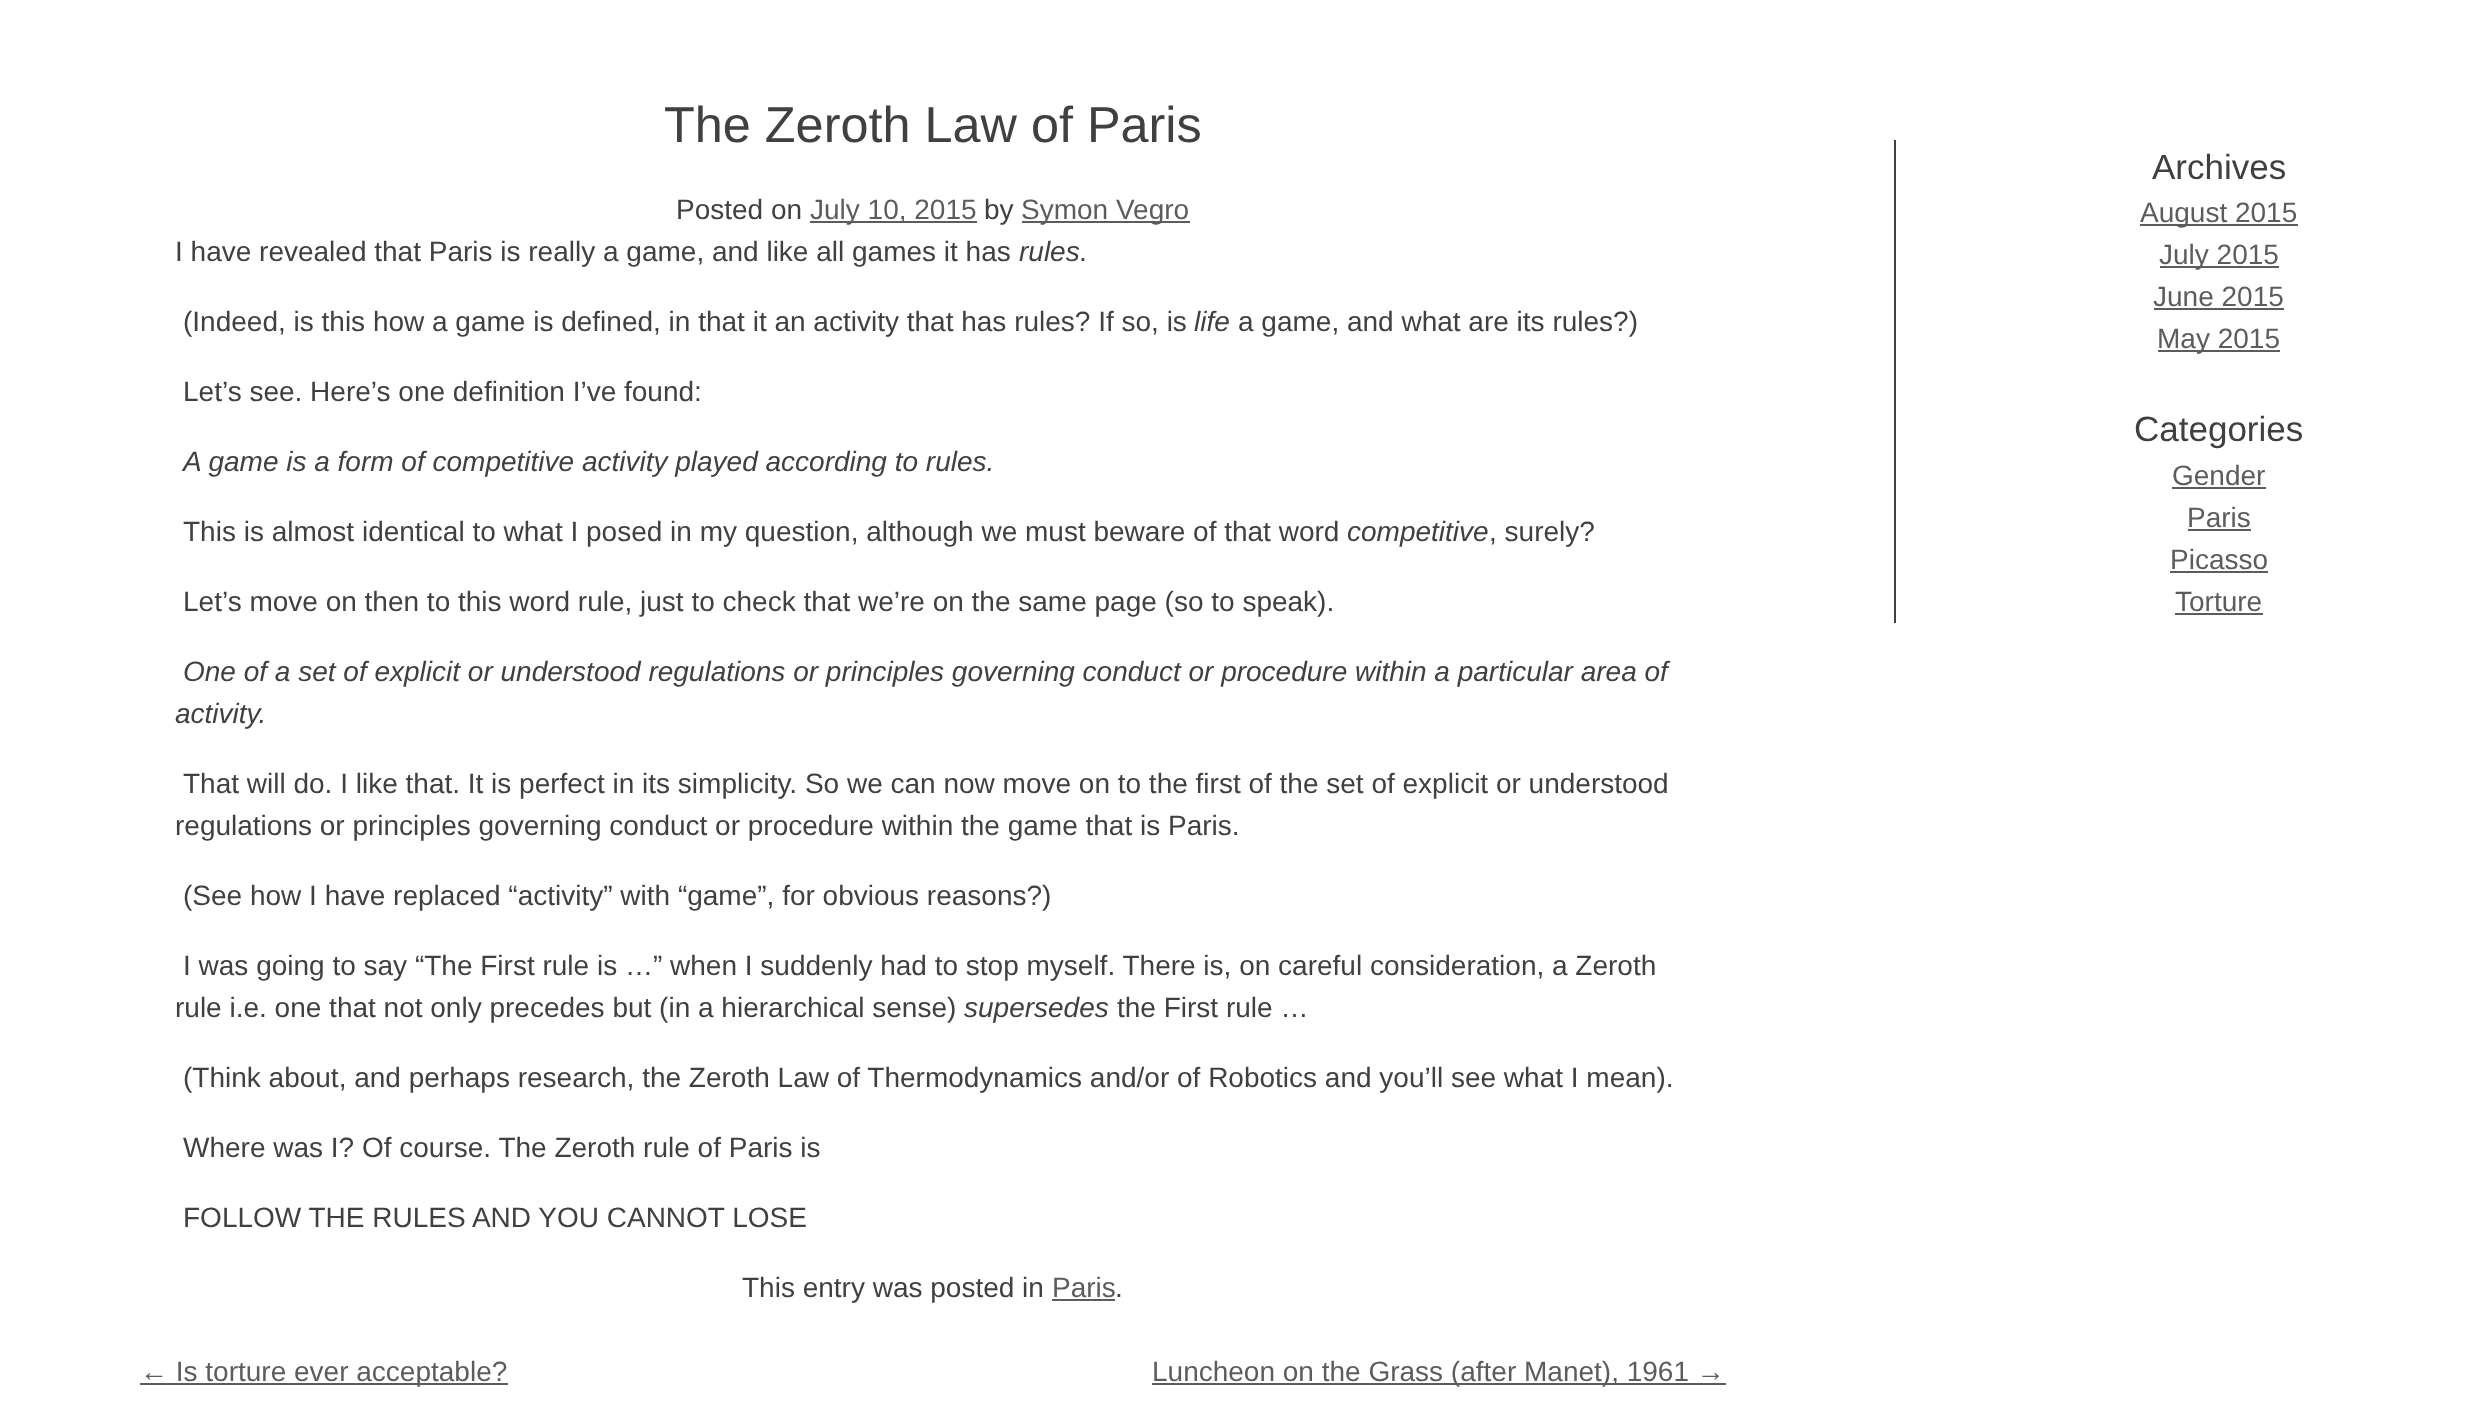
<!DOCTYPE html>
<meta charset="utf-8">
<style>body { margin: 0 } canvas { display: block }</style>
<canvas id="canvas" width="2486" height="1402"></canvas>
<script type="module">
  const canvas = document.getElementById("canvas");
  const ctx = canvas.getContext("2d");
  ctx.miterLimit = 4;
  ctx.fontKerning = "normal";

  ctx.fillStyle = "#ffffff";
  ctx.fillRect(0, 0, 2486, 1402);
  ctx.font = "50.4px Liberation Sans";
  ctx.fillStyle = "#404040";
  ctx.fillText("The Zeroth Law of Paris", 664, 142);
  ctx.font = "28px Liberation Sans";
  ctx.fillText("Posted on", 676, 219);
  ctx.fillStyle = "#5d5c5a";
  ctx.fillRect(810, 221, 167, 2);
  ctx.fillText("July 10, 2015", 810, 219);
  ctx.fillStyle = "#404040";
  ctx.fillText("by", 984, 219);
  ctx.fillStyle = "#5d5c5a";
  ctx.fillRect(1022, 221, 168, 2);
  ctx.fillText("Symon Vegro", 1021, 219);
  ctx.fillStyle = "#404040";
  ctx.fillText("I have revealed that Paris is really a game, and like all games it has", 175, 261);
  ctx.font = "italic 28px Liberation Sans";
  ctx.fillText("rules", 1019, 261);
  ctx.font = "28px Liberation Sans";
  ctx.fillText(".", 1079, 261);
  ctx.fillText("(Indeed, is this how a game is defined, in that it an activity that has rules? If so, is", 183, 331);
  ctx.font = "italic 28px Liberation Sans";
  ctx.fillText("life", 1194, 331);
  ctx.font = "28px Liberation Sans";
  ctx.fillText("a game, and what are its rules?)", 1238, 331);
  ctx.fillText("Let’s see. Here’s one definition I’ve found:", 183, 401);
  ctx.font = "italic 28px Liberation Sans";
  ctx.fillText("A game is a form of competitive activity played according to rules.", 183, 471);
  ctx.font = "28px Liberation Sans";
  ctx.fillText("This is almost identical to what I posed in my question, although we must beware of that word", 183, 541);
  ctx.font = "italic 28px Liberation Sans";
  ctx.fillText("competitive", 1347, 541);
  ctx.font = "28px Liberation Sans";
  ctx.fillText(", surely?", 1489, 541);
  ctx.fillText("Let’s move on then to this word rule, just to check that we’re on the same page (so to speak).", 183, 611);
  ctx.font = "italic 28px Liberation Sans";
  ctx.fillText("One of a set of explicit or understood regulations or principles governing conduct or procedure within a particular area of", 183, 681);
  ctx.fillText("activity.", 175, 723);
  ctx.font = "28px Liberation Sans";
  ctx.fillText("That will do. I like that. It is perfect in its simplicity. So we can now move on to the first of the set of explicit or understood", 183, 793);
  ctx.fillText("regulations or principles governing conduct or procedure within the game that is Paris.", 175, 835);
  ctx.fillText("(See how I have replaced “activity” with “game”, for obvious reasons?)", 183, 905);
  ctx.fillText("I was going to say “The First rule is …” when I suddenly had to stop myself. There is, on careful consideration, a Zeroth", 183, 975);
  ctx.fillText("rule i.e. one that not only precedes but (in a hierarchical sense)", 175, 1017);
  ctx.font = "italic 28px Liberation Sans";
  ctx.fillText("supersedes", 964, 1017);
  ctx.font = "28px Liberation Sans";
  ctx.fillText("the First rule …", 1117, 1017);
  ctx.fillText("(Think about, and perhaps research, the Zeroth Law of Thermodynamics and/or of Robotics and you’ll see what I mean).", 183, 1087);
  ctx.fillText("Where was I? Of course. The Zeroth rule of Paris is", 183, 1157);
  ctx.fillText("FOLLOW THE RULES AND YOU CANNOT LOSE", 183, 1227);
  ctx.fillText("This entry was posted in", 742, 1297);
  ctx.fillStyle = "#5d5c5a";
  ctx.fillText("Paris", 1052, 1297);
  ctx.fillRect(1052, 1299, 63, 2);
  ctx.fillStyle = "#404040";
  ctx.fillText(".", 1115, 1297);
  ctx.fillStyle = "#5d5c5a";
  ctx.fillRect(140, 1383, 368, 2);
  ctx.fillText("← Is torture ever acceptable?", 140, 1381);
  ctx.fillRect(1152, 1383, 574, 2);
  ctx.fillText("Luncheon on the Grass (after Manet), 1961 →", 1152, 1381);
  ctx.fillStyle = "#404040";
  ctx.fillRect(1894, 140, 2, 483);
  ctx.font = "35px Liberation Sans";
  ctx.fillText("Archives", 2152, 179);
  ctx.fillStyle = "#5d5c5a";
  ctx.fillRect(2140, 224, 158, 2);
  ctx.font = "28px Liberation Sans";
  ctx.fillText("August 2015", 2140, 222);
  ctx.fillRect(2160, 266, 119, 2);
  ctx.fillText("July 2015", 2159, 264);
  ctx.fillText("June 2015", 2153, 306);
  ctx.fillRect(2154, 308, 130, 2);
  ctx.fillRect(2158, 350, 122, 2);
  ctx.fillText("May 2015", 2157, 348);
  ctx.font = "35px Liberation Sans";
  ctx.fillStyle = "#404040";
  ctx.fillText("Categories", 2134, 441);
  ctx.font = "28px Liberation Sans";
  ctx.fillStyle = "#5d5c5a";
  ctx.fillText("Gender", 2172, 485);
  ctx.fillRect(2172, 487, 94, 2);
  ctx.fillText("Paris", 2187, 527);
  ctx.fillRect(2188, 529, 63, 2);
  ctx.fillText("Picasso", 2170, 569);
  ctx.fillRect(2170, 571, 98, 2);
  ctx.fillText("Torture", 2175, 611);
  ctx.fillRect(2175, 613, 88, 2);
</script>
